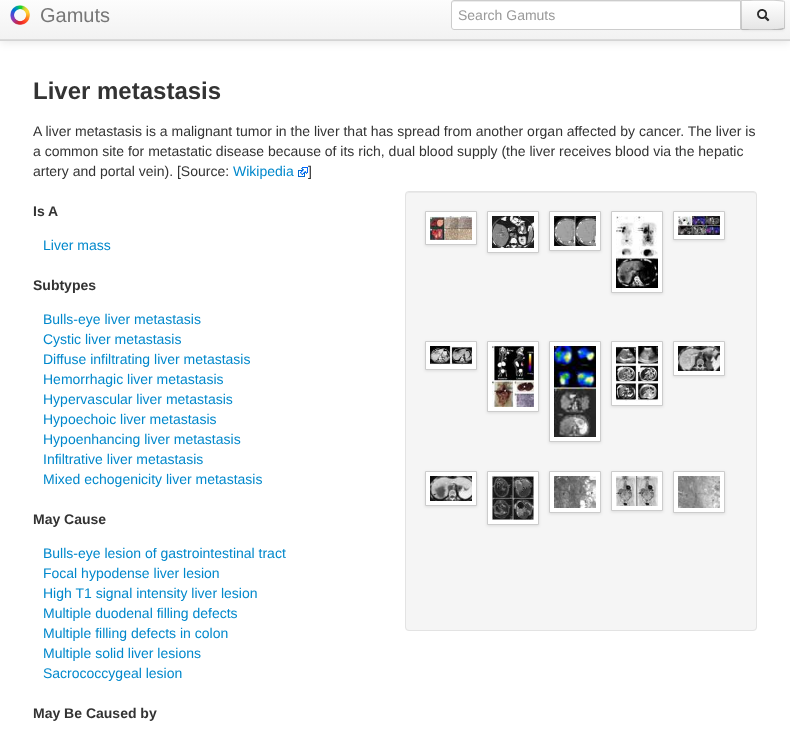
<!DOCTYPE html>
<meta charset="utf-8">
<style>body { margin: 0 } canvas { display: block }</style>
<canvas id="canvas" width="790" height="748"></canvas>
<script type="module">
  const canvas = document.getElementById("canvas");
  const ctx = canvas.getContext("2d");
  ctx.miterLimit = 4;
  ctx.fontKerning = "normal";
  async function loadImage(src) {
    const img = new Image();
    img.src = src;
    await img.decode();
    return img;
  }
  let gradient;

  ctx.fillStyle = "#ffffff";
  ctx.fillRect(0, 0, 790, 748);
  ctx.fillStyle = "rgba(0, 0, 0, 0.1)";
  ctx.filter = "blur(5px)";
  ctx.beginPath();
  ctx.rect(0, -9, 790, 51);
  ctx.fill();
  ctx.filter = "none";
  gradient = ctx.createLinearGradient(395, -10, 395, 40);
  gradient.addColorStop(0, "#ffffff");
  gradient.addColorStop(1, "#f2f2f2");
  ctx.fillStyle = gradient;
  ctx.fillRect(0, 0, 790, 39);
  ctx.fillStyle = "#dadada";
  ctx.fillRect(0, 39, 790, 1);
  ctx.fillStyle = "#d4d4d4";
  ctx.fillRect(0, 40, 790, 1);
  ctx.drawImage(await loadImage("img1.png"), 10, 5, 20, 20);
  ctx.font = "20px Liberation Sans";
  ctx.fillStyle = "#777777";
  ctx.fillText("Gamuts", 40, 22);
  ctx.fillStyle = "rgba(0, 0, 0, 0.05)";
  ctx.filter = "blur(1px)";
  ctx.beginPath();
  ctx.roundRect(741, 1, 44, 30, 3);
  ctx.fill();
  ctx.filter = "none";
  ctx.fillStyle = "#ffffff";
  ctx.beginPath();
  ctx.roundRect(451, 0, 290, 30, [3, 0, 0, 3]);
  ctx.fill();
  ctx.fillStyle = "#ececec";
  ctx.beginPath();
  ctx.moveTo(454, 2);
  ctx.lineTo(740, 2);
  ctx.lineTo(740, 1);
  ctx.lineTo(453, 1);
  ctx.lineTo(452, 4);
  ctx.bezierCurveTo(452, 3, 453, 2, 454, 2);
  ctx.closePath();
  ctx.fill();
  ctx.beginPath();
  ctx.roundRect(451.5, 0.5, 289, 29, [2.5, 0, 0, 2.5]);
  ctx.strokeStyle = "#cccccc";
  ctx.stroke();
  ctx.font = "14px Liberation Sans";
  ctx.fillStyle = "#999999";
  ctx.fillText("Search Gamuts", 458, 20);
  ctx.fillStyle = "#f5f5f5";
  ctx.beginPath();
  ctx.roundRect(741, 0, 44, 30, [0, 3, 3, 0]);
  ctx.fill();
  ctx.save();
  ctx.beginPath();
  ctx.roundRect(741, 0, 44, 30, [0, 3, 3, 0]);
  ctx.clip();
  gradient = ctx.createLinearGradient(763, 1, 763, 29);
  gradient.addColorStop(0, "#ffffff");
  gradient.addColorStop(1, "#e6e6e6");
  ctx.fillStyle = gradient;
  ctx.fillRect(741, 1, 44, 28);
  ctx.restore();
  ctx.fillStyle = "rgba(0, 0, 0, 0.15)";
  ctx.beginPath();
  ctx.moveTo(741, 0);
  ctx.lineTo(742, 1);
  ctx.bezierCurveTo(747, 1, 782, 0, 783, 2);
  ctx.lineTo(784, 1);
  ctx.bezierCurveTo(783, 0, 780, 0, 775, 0);
  ctx.closePath();
  ctx.fill();
  ctx.beginPath();
  ctx.moveTo(785, 28.5);
  ctx.lineTo(784, 29);
  ctx.lineTo(783.5, 28.5);
  ctx.bezierCurveTo(784, 28, 784, 27.5, 784, 27);
  ctx.lineTo(784, 3);
  ctx.bezierCurveTo(784, 2.5, 784, 2, 783.5, 1.5);
  ctx.lineTo(784, 1);
  ctx.lineTo(785, 1.5);
  ctx.closePath();
  ctx.fill();
  ctx.fillStyle = "rgba(0, 0, 0, 0.25)";
  ctx.beginPath();
  ctx.moveTo(775, 30);
  ctx.bezierCurveTo(780, 30, 783, 30, 784, 29);
  ctx.lineTo(783, 28);
  ctx.bezierCurveTo(782, 30, 747, 29, 742, 29);
  ctx.lineTo(741, 30);
  ctx.closePath();
  ctx.fill();
  ctx.fillStyle = "rgba(0, 0, 0, 0.15)";
  ctx.beginPath();
  ctx.moveTo(741, 0);
  ctx.lineTo(741, 30);
  ctx.lineTo(742, 29);
  ctx.lineTo(742, 1);
  ctx.closePath();
  ctx.fill();
  ctx.drawImage(await loadImage("img2.png"), 757, 9, 13, 13);
  ctx.font = "bold 24px Liberation Sans";
  ctx.fillStyle = "#333333";
  ctx.fillText("Liver metastasis", 33, 99);
  ctx.font = "14px Liberation Sans";
  ctx.fillText("A liver metastasis is a malignant tumor in the liver that has spread from another organ affected by cancer. The liver is", 33, 136);
  ctx.fillText("a common site for metastatic disease because of its rich, dual blood supply (the liver receives blood via the hepatic", 33, 156);
  ctx.fillText("artery and portal vein). [Source:", 33, 176);
  ctx.fillStyle = "#0088cc";
  ctx.fillText("Wikipedia", 233, 176);
  ctx.drawImage(await loadImage("img3.png"), 298, 167, 10, 10);
  ctx.fillStyle = "#333333";
  ctx.fillText("]", 308, 176);
  ctx.font = "bold 14px Liberation Sans";
  ctx.fillText("Is A", 33, 216);
  ctx.font = "14px Liberation Sans";
  ctx.fillStyle = "#0088cc";
  ctx.fillText("Liver mass", 43, 250);
  ctx.font = "bold 14px Liberation Sans";
  ctx.fillStyle = "#333333";
  ctx.fillText("Subtypes", 33, 290);
  ctx.font = "14px Liberation Sans";
  ctx.fillStyle = "#0088cc";
  ctx.fillText("Bulls-eye liver metastasis", 43, 324);
  ctx.fillText("Cystic liver metastasis", 43, 344);
  ctx.fillText("Diffuse infiltrating liver metastasis", 43, 364);
  ctx.fillText("Hemorrhagic liver metastasis", 43, 384);
  ctx.fillText("Hypervascular liver metastasis", 43, 404);
  ctx.fillText("Hypoechoic liver metastasis", 43, 424);
  ctx.fillText("Hypoenhancing liver metastasis", 43, 444);
  ctx.fillText("Infiltrative liver metastasis", 43, 464);
  ctx.fillText("Mixed echogenicity liver metastasis", 43, 484);
  ctx.font = "bold 14px Liberation Sans";
  ctx.fillStyle = "#333333";
  ctx.fillText("May Cause", 33, 524);
  ctx.font = "14px Liberation Sans";
  ctx.fillStyle = "#0088cc";
  ctx.fillText("Bulls-eye lesion of gastrointestinal tract", 43, 558);
  ctx.fillText("Focal hypodense liver lesion", 43, 578);
  ctx.fillText("High T1 signal intensity liver lesion", 43, 598);
  ctx.fillText("Multiple duodenal filling defects", 43, 618);
  ctx.fillText("Multiple filling defects in colon", 43, 638);
  ctx.fillText("Multiple solid liver lesions", 43, 658);
  ctx.fillText("Sacrococcygeal lesion", 43, 678);
  ctx.font = "bold 14px Liberation Sans";
  ctx.fillStyle = "#333333";
  ctx.fillText("May Be Caused by", 33, 718);
  ctx.fillStyle = "#f5f5f5";
  ctx.beginPath();
  ctx.roundRect(405, 191, 352, 440, 4);
  ctx.fill();
  ctx.fillStyle = "#e9e9e9";
  ctx.beginPath();
  ctx.moveTo(409, 193);
  ctx.lineTo(753, 193);
  ctx.bezierCurveTo(755, 193, 756, 194, 756, 196);
  ctx.bezierCurveTo(756, 194, 755, 192, 753, 192);
  ctx.lineTo(409, 192);
  ctx.lineTo(407, 193);
  ctx.lineTo(406, 196);
  ctx.bezierCurveTo(406, 194, 407, 193, 409, 193);
  ctx.closePath();
  ctx.fill();
  ctx.beginPath();
  ctx.roundRect(405.5, 191.5, 351, 439, 3.5);
  ctx.strokeStyle = "#e3e3e3";
  ctx.stroke();
  ctx.fillStyle = "rgba(0, 0, 0, 0.1)";
  ctx.filter = "blur(1.5px)";
  ctx.beginPath();
  ctx.rect(425, 212, 52, 34);
  ctx.fill();
  ctx.filter = "none";
  ctx.fillStyle = "#ffffff";
  ctx.beginPath();
  ctx.rect(425.5, 211.5, 51, 33);
  ctx.fill();
  ctx.strokeStyle = "#cccccc";
  ctx.stroke();
  ctx.drawImage(await loadImage("img4.png"), 430, 216, 42, 24);
  ctx.fillStyle = "rgba(0, 0, 0, 0.1)";
  ctx.filter = "blur(1.5px)";
  ctx.beginPath();
  ctx.rect(487, 212, 52, 42);
  ctx.fill();
  ctx.filter = "none";
  ctx.fillStyle = "#ffffff";
  ctx.beginPath();
  ctx.rect(487.5, 211.5, 51, 41);
  ctx.fill();
  ctx.stroke();
  ctx.drawImage(await loadImage("img5.png"), 492, 216, 42, 32);
  ctx.fillStyle = "rgba(0, 0, 0, 0.1)";
  ctx.filter = "blur(1.5px)";
  ctx.beginPath();
  ctx.rect(549, 212, 52, 40);
  ctx.fill();
  ctx.filter = "none";
  ctx.fillStyle = "#ffffff";
  ctx.beginPath();
  ctx.rect(549.5, 211.5, 51, 39);
  ctx.fill();
  ctx.stroke();
  ctx.drawImage(await loadImage("img6.png"), 554, 216, 42, 30);
  ctx.fillStyle = "rgba(0, 0, 0, 0.1)";
  ctx.filter = "blur(1.5px)";
  ctx.beginPath();
  ctx.rect(611, 212, 52, 82);
  ctx.fill();
  ctx.filter = "none";
  ctx.fillStyle = "#ffffff";
  ctx.beginPath();
  ctx.rect(611.5, 211.5, 51, 81);
  ctx.fill();
  ctx.stroke();
  ctx.drawImage(await loadImage("img7.png"), 616, 216, 42, 72);
  ctx.fillStyle = "rgba(0, 0, 0, 0.1)";
  ctx.filter = "blur(1.5px)";
  ctx.beginPath();
  ctx.rect(673, 212, 52, 29);
  ctx.fill();
  ctx.filter = "none";
  ctx.fillStyle = "#ffffff";
  ctx.beginPath();
  ctx.rect(673.5, 211.5, 51, 28);
  ctx.fill();
  ctx.stroke();
  ctx.drawImage(await loadImage("img8.png"), 678, 216, 42, 19);
  ctx.fillStyle = "rgba(0, 0, 0, 0.1)";
  ctx.filter = "blur(1.5px)";
  ctx.beginPath();
  ctx.rect(425, 342, 52, 29);
  ctx.fill();
  ctx.filter = "none";
  ctx.fillStyle = "#ffffff";
  ctx.beginPath();
  ctx.rect(425.5, 341.5, 51, 28);
  ctx.fill();
  ctx.stroke();
  ctx.drawImage(await loadImage("img9.png"), 430, 346, 42, 19);
  ctx.fillStyle = "rgba(0, 0, 0, 0.1)";
  ctx.filter = "blur(1.5px)";
  ctx.beginPath();
  ctx.rect(487, 342, 52, 71);
  ctx.fill();
  ctx.filter = "none";
  ctx.fillStyle = "#ffffff";
  ctx.beginPath();
  ctx.rect(487.5, 341.5, 51, 70);
  ctx.fill();
  ctx.stroke();
  ctx.drawImage(await loadImage("img10.png"), 492, 346, 42, 61);
  ctx.fillStyle = "rgba(0, 0, 0, 0.1)";
  ctx.filter = "blur(1.5px)";
  ctx.beginPath();
  ctx.rect(549, 342, 52, 101);
  ctx.fill();
  ctx.filter = "none";
  ctx.fillStyle = "#ffffff";
  ctx.beginPath();
  ctx.rect(549.5, 341.5, 51, 100);
  ctx.fill();
  ctx.stroke();
  ctx.drawImage(await loadImage("img11.png"), 554, 346, 42, 91);
  ctx.fillStyle = "rgba(0, 0, 0, 0.1)";
  ctx.filter = "blur(1.5px)";
  ctx.beginPath();
  ctx.rect(611, 342, 52, 65);
  ctx.fill();
  ctx.filter = "none";
  ctx.fillStyle = "#ffffff";
  ctx.beginPath();
  ctx.rect(611.5, 341.5, 51, 64);
  ctx.fill();
  ctx.stroke();
  ctx.drawImage(await loadImage("img12.png"), 616, 346, 42, 55);
  ctx.fillStyle = "rgba(0, 0, 0, 0.1)";
  ctx.filter = "blur(1.5px)";
  ctx.beginPath();
  ctx.rect(673, 342, 52, 35);
  ctx.fill();
  ctx.filter = "none";
  ctx.fillStyle = "#ffffff";
  ctx.beginPath();
  ctx.rect(673.5, 341.5, 51, 34);
  ctx.fill();
  ctx.stroke();
  ctx.drawImage(await loadImage("img13.png"), 678, 346, 42, 25);
  ctx.fillStyle = "rgba(0, 0, 0, 0.1)";
  ctx.filter = "blur(1.5px)";
  ctx.beginPath();
  ctx.rect(425, 472, 52, 35);
  ctx.fill();
  ctx.filter = "none";
  ctx.fillStyle = "#ffffff";
  ctx.beginPath();
  ctx.rect(425.5, 471.5, 51, 34);
  ctx.fill();
  ctx.stroke();
  ctx.drawImage(await loadImage("img14.png"), 430, 476, 42, 25);
  ctx.fillStyle = "rgba(0, 0, 0, 0.1)";
  ctx.filter = "blur(1.5px)";
  ctx.beginPath();
  ctx.rect(487, 472, 52, 54);
  ctx.fill();
  ctx.filter = "none";
  ctx.fillStyle = "#ffffff";
  ctx.beginPath();
  ctx.rect(487.5, 471.5, 51, 53);
  ctx.fill();
  ctx.stroke();
  ctx.drawImage(await loadImage("img15.png"), 492, 476, 42, 44);
  ctx.fillStyle = "rgba(0, 0, 0, 0.1)";
  ctx.filter = "blur(1.5px)";
  ctx.beginPath();
  ctx.rect(549, 472, 52, 42);
  ctx.fill();
  ctx.filter = "none";
  ctx.fillStyle = "#ffffff";
  ctx.beginPath();
  ctx.rect(549.5, 471.5, 51, 41);
  ctx.fill();
  ctx.stroke();
  ctx.drawImage(await loadImage("img16.png"), 554, 476, 42, 32);
  ctx.fillStyle = "rgba(0, 0, 0, 0.1)";
  ctx.filter = "blur(1.5px)";
  ctx.beginPath();
  ctx.rect(611, 472, 52, 40);
  ctx.fill();
  ctx.filter = "none";
  ctx.fillStyle = "#ffffff";
  ctx.beginPath();
  ctx.rect(611.5, 471.5, 51, 39);
  ctx.fill();
  ctx.stroke();
  ctx.drawImage(await loadImage("img17.png"), 616, 476, 42, 30);
  ctx.fillStyle = "rgba(0, 0, 0, 0.1)";
  ctx.filter = "blur(1.5px)";
  ctx.beginPath();
  ctx.rect(673, 472, 52, 42);
  ctx.fill();
  ctx.filter = "none";
  ctx.fillStyle = "#ffffff";
  ctx.beginPath();
  ctx.rect(673.5, 471.5, 51, 41);
  ctx.fill();
  ctx.stroke();
  ctx.drawImage(await loadImage("img18.png"), 678, 476, 42, 32);
</script>
